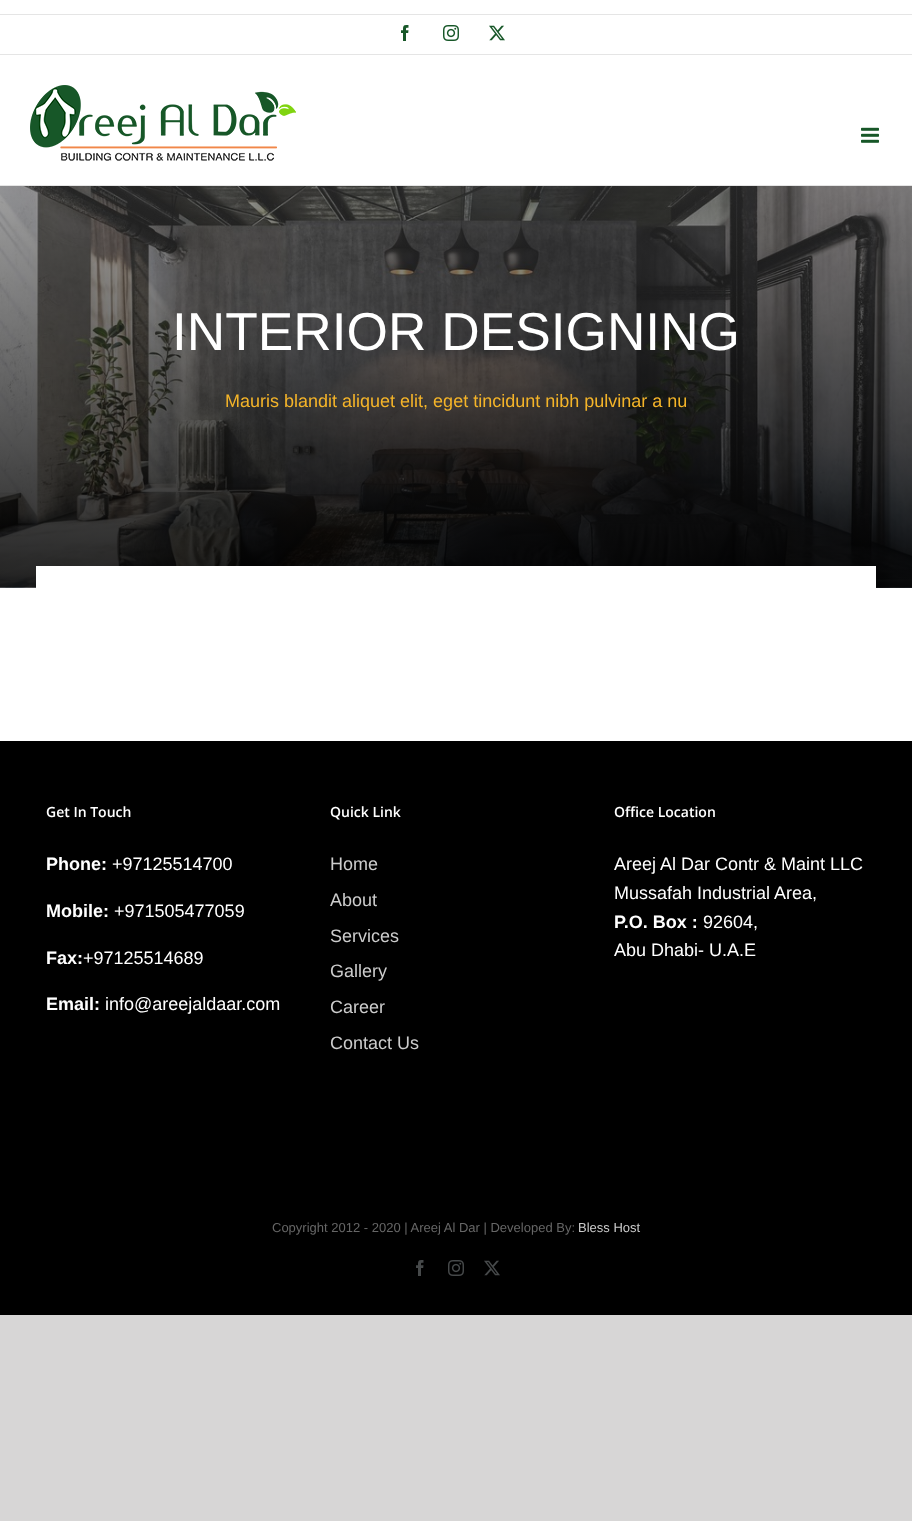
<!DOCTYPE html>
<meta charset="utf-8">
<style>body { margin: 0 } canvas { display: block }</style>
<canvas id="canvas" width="912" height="1521"></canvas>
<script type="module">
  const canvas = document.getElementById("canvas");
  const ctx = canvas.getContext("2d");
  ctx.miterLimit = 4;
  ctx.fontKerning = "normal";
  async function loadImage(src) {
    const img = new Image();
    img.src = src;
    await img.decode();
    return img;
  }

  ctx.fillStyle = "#d7d6d6";
  ctx.fillRect(0, 0, 912, 1521);
  ctx.fillStyle = "#ffffff";
  ctx.fillRect(0, 0, 912, 741);
  ctx.fillStyle = "#e5e5e5";
  ctx.fillRect(0, 54, 912, 1);
  ctx.fillRect(0, 14, 912, 1);
  ctx.drawImage(await loadImage("img1.png"), 401, 25, 8, 16);
  ctx.drawImage(await loadImage("img2.png"), 443, 25, 16, 16);
  ctx.drawImage(await loadImage("img3.png"), 489, 25, 16, 16);
  ctx.fillRect(0, 185, 912, 1);
  ctx.drawImage(await loadImage("img4.png"), 30, 85, 266, 76);
  ctx.drawImage(await loadImage("img5.png"), 861, 127, 18, 16);
  ctx.drawImage(await loadImage("img6.png"), 0, 186, 912, 402);
  ctx.font = "53.25px Liberation Sans";
  ctx.fillStyle = "#ffffff";
  ctx.fillText("INTERIOR DESIGNING", 172, 350);
  ctx.font = "18px Liberation Sans";
  ctx.fillStyle = "#f4b429";
  ctx.fillText("Mauris blandit aliquet elit, eget tincidunt nibh pulvinar a nu", 225, 407);
  ctx.fillStyle = "#ffffff";
  ctx.fillRect(36, 566, 840, 22);
  ctx.fillStyle = "#000000";
  ctx.fillRect(0, 741, 912, 574);
  ctx.font = "600 14px Open Sans";
  ctx.fillStyle = "#ffffff";
  ctx.fillText("Get In Touch", 46, 817);
  ctx.font = "bold 18px Liberation Sans";
  ctx.fillText("Phone:", 46, 870);
  ctx.font = "18px Liberation Sans";
  ctx.fillText("+97125514700", 112, 870);
  ctx.font = "bold 18px Liberation Sans";
  ctx.fillText("Mobile:", 46, 917);
  ctx.font = "18px Liberation Sans";
  ctx.fillText("+971505477059", 114, 917);
  ctx.font = "bold 18px Liberation Sans";
  ctx.fillText("Fax:", 46, 964);
  ctx.font = "18px Liberation Sans";
  ctx.fillText("+97125514689", 83, 964);
  ctx.font = "bold 18px Liberation Sans";
  ctx.fillText("Email:", 46, 1010);
  ctx.font = "18px Liberation Sans";
  ctx.fillText("info@areejaldaar.com", 105, 1010);
  ctx.font = "600 14px Open Sans";
  ctx.fillText("Quick Link", 330, 817);
  ctx.font = "18px Liberation Sans";
  ctx.fillStyle = "#cccccc";
  ctx.fillText("Home", 330, 870);
  ctx.fillText("About", 330, 906);
  ctx.fillText("Services", 330, 942);
  ctx.fillText("Gallery", 330, 977);
  ctx.fillText("Career", 330, 1013);
  ctx.fillText("Contact Us", 330, 1049);
  ctx.font = "600 14px Open Sans";
  ctx.fillStyle = "#ffffff";
  ctx.fillText("Office Location", 614, 817);
  ctx.font = "18px Liberation Sans";
  ctx.fillText("Areej Al Dar Contr & Maint LLC", 614, 870);
  ctx.fillText("Mussafah Industrial Area,", 614, 899);
  ctx.font = "bold 18px Liberation Sans";
  ctx.fillText("P.O. Box :", 614, 928);
  ctx.font = "18px Liberation Sans";
  ctx.fillText("92604,", 703, 928);
  ctx.fillText("Abu Dhabi- U.A.E", 614, 956);
  ctx.font = "13px Liberation Sans";
  ctx.fillStyle = "#666666";
  ctx.fillText("Copyright 2012 - 2020 | Areej Al Dar | Developed By:", 272, 1232);
  ctx.fillStyle = "#cccccc";
  ctx.fillText("Bless Host", 578, 1232);
  ctx.drawImage(await loadImage("img7.png"), 416, 1260, 8, 16);
  ctx.drawImage(await loadImage("img8.png"), 448, 1260, 16, 16);
  ctx.drawImage(await loadImage("img9.png"), 484, 1260, 16, 16);
</script>
